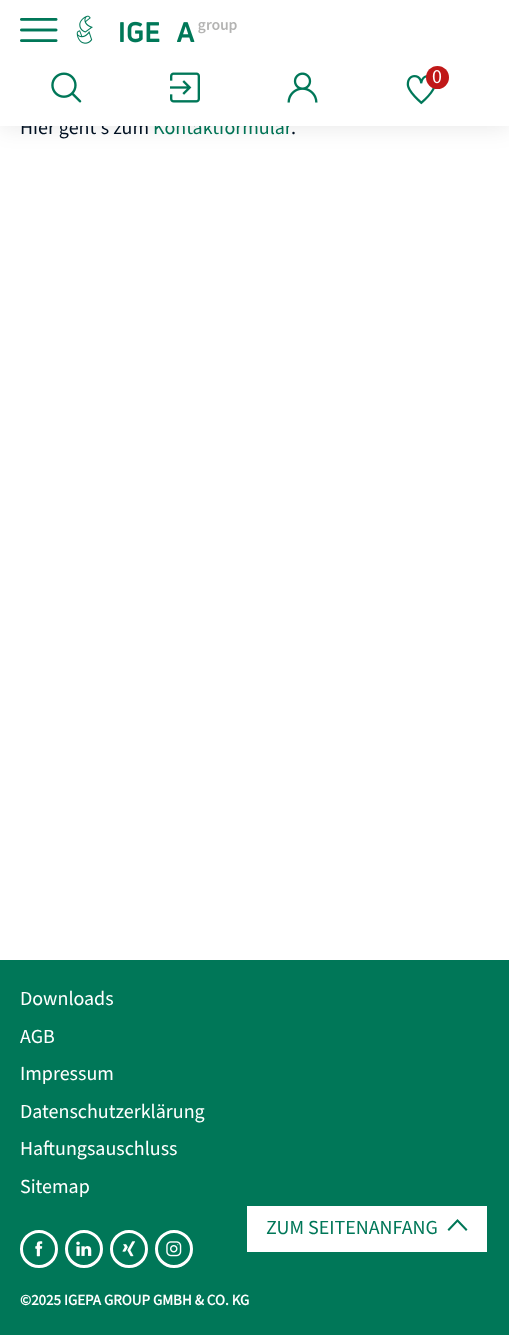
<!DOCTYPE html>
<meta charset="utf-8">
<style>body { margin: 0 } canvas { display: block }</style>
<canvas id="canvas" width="509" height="1335"></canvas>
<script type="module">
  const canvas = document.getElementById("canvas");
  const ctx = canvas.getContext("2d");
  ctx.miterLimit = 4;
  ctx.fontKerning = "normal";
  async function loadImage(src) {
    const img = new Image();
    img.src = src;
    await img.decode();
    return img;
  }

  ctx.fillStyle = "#ffffff";
  ctx.fillRect(0, 0, 509, 1335);
  ctx.font = "20px Source Sans Pro";
  ctx.fillStyle = "#001123";
  ctx.fillText("Hier geht's zum", 20, 134);
  ctx.fillStyle = "#007758";
  ctx.fillText("Kontaktformular", 153, 134);
  ctx.fillStyle = "#001123";
  ctx.fillText(".", 291, 134);
  ctx.fillStyle = "rgba(0, 0, 0, 0.1)";
  ctx.filter = "blur(12.5px)";
  ctx.beginPath();
  ctx.rect(0, 0, 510, 126);
  ctx.fill();
  ctx.filter = "none";
  ctx.fillStyle = "#ffffff";
  ctx.fillRect(0, 0, 509, 126);
  ctx.drawImage(await loadImage("img1.png"), 20, 18, 38, 24);
  ctx.drawImage(await loadImage("img2.png"), 76, 15, 161, 29);
  ctx.drawImage(await loadImage("img3.png"), 51, 72, 31, 31);
  ctx.drawImage(await loadImage("img4.png"), 170, 72, 30, 31);
  ctx.drawImage(await loadImage("img5.png"), 287, 72, 31, 31);
  ctx.drawImage(await loadImage("img6.png"), 406, 75, 29, 30);
  ctx.fillStyle = "#c01818";
  ctx.beginPath();
  ctx.arc(437.5, 77.5, 11.5, 0, Math.PI * 2);
  ctx.fill();
  ctx.fillStyle = "#ffffff";
  ctx.fillText("0", 432, 83);
  ctx.fillStyle = "#007758";
  ctx.fillRect(0, 960, 509, 375);
  ctx.fillStyle = "#ffffff";
  ctx.fillRect(247, 1206, 240, 46);
  ctx.fillStyle = "#007758";
  ctx.fillText("ZUM SEITENANFANG", 266, 1234);
  ctx.beginPath();
  ctx.moveTo(457.5, 1219);
  ctx.lineTo(447.5, 1229.5);
  ctx.lineTo(449, 1231);
  ctx.lineTo(457.5, 1222);
  ctx.lineTo(466, 1231);
  ctx.lineTo(467.5, 1229.5);
  ctx.closePath();
  ctx.fill();
  ctx.fillStyle = "#ffffff";
  ctx.fillText("Downloads", 20, 1005);
  ctx.fillText("AGB", 20, 1043);
  ctx.fillText("Impressum", 20, 1080);
  ctx.fillText("Datenschutzerklärung", 20, 1118);
  ctx.fillText("Haftungsauschluss", 20, 1155);
  ctx.fillText("Sitemap", 20, 1193);
  ctx.beginPath();
  ctx.arc(39, 1249, 17.5, 0, Math.PI * 2);
  ctx.strokeStyle = "#ffffff";
  ctx.lineWidth = 3;
  ctx.stroke();
  ctx.drawImage(await loadImage("img7.png"), 35, 1241, 8, 16);
  ctx.beginPath();
  ctx.arc(84, 1249, 17.5, 0, Math.PI * 2);
  ctx.stroke();
  ctx.drawImage(await loadImage("img8.png"), 76, 1241, 16, 15);
  ctx.beginPath();
  ctx.arc(129, 1249, 17.5, 0, Math.PI * 2);
  ctx.stroke();
  ctx.drawImage(await loadImage("img9.png"), 122, 1241, 14, 16);
  ctx.beginPath();
  ctx.arc(174, 1249, 17.5, 0, Math.PI * 2);
  ctx.stroke();
  ctx.drawImage(await loadImage("img10.png"), 166, 1241, 16, 16);
  ctx.font = "bold 15px Source Sans Pro";
  ctx.fillText("©2025 IGEPA GROUP GMBH & CO. KG", 20, 1305);
</script>
